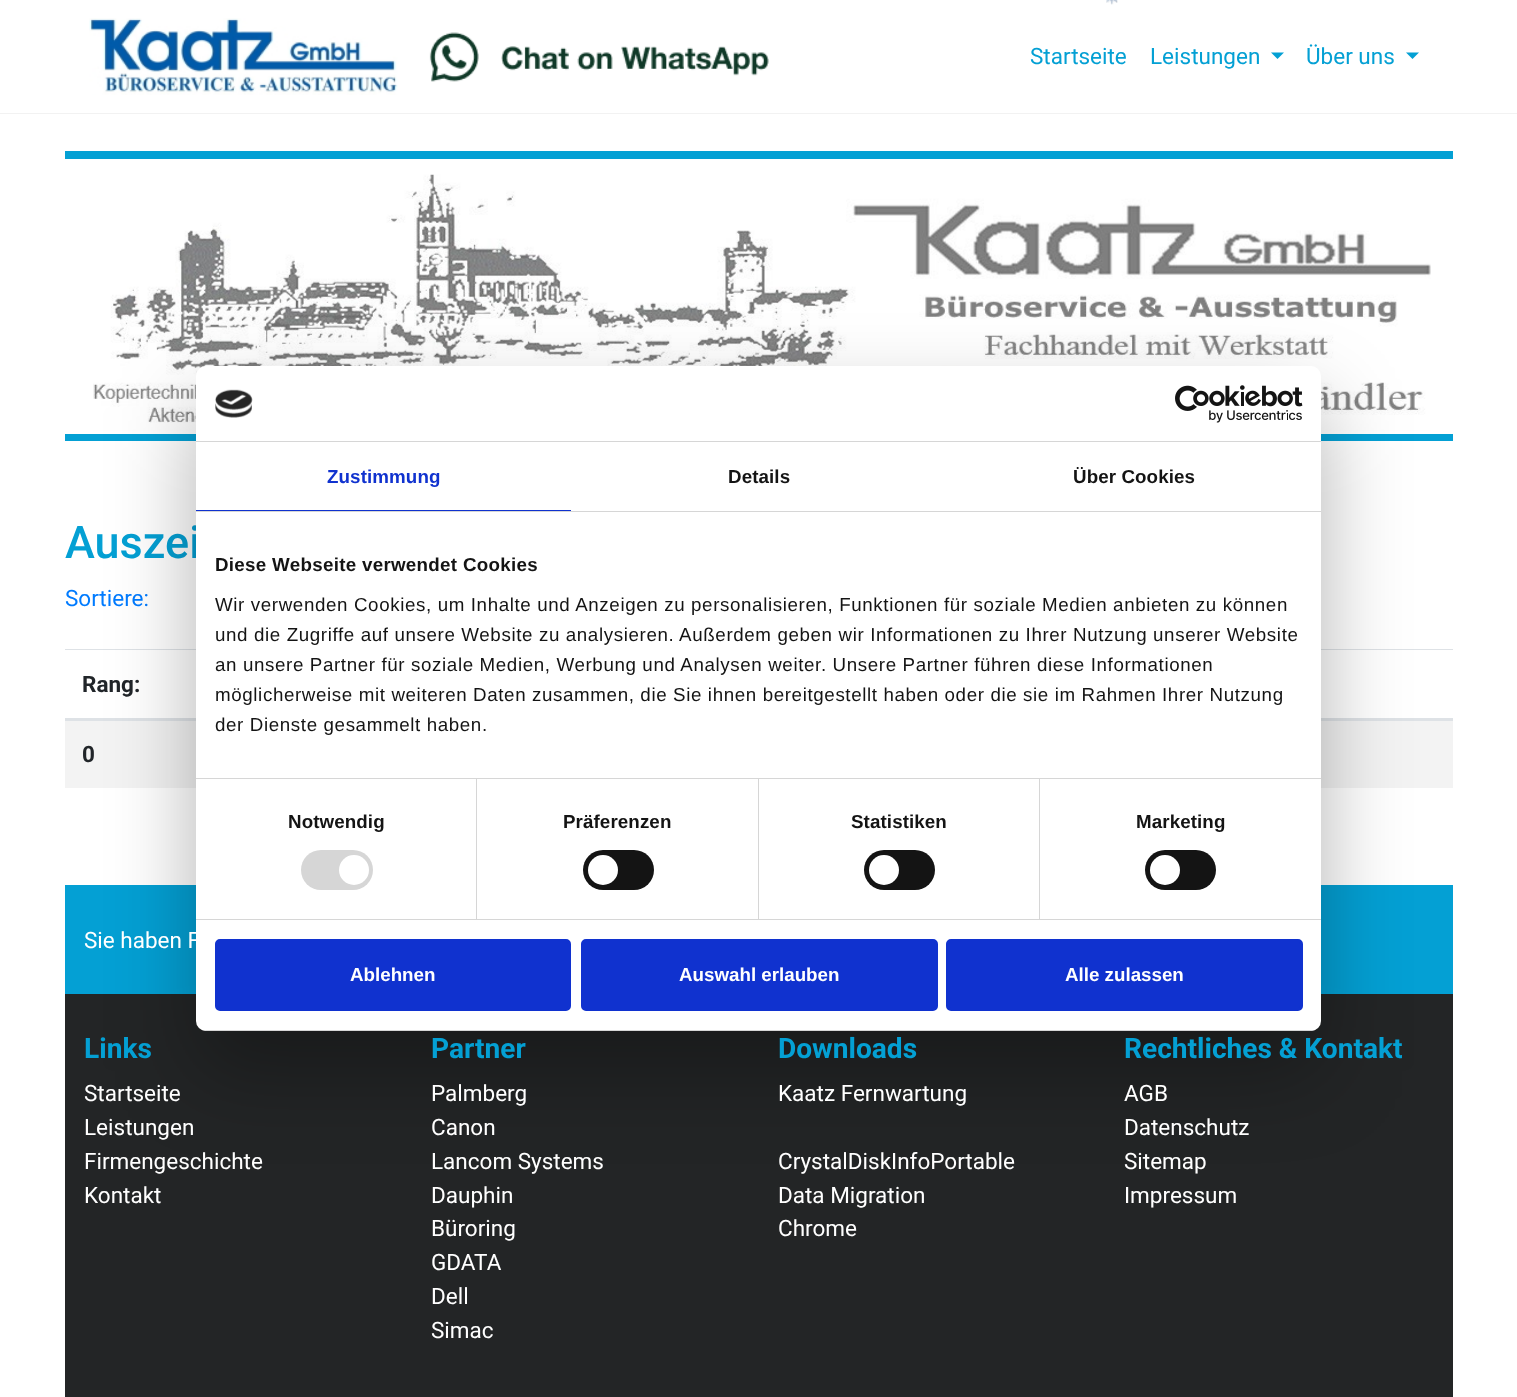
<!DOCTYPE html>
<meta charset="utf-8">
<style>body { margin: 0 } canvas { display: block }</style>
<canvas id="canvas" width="1517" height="1397"></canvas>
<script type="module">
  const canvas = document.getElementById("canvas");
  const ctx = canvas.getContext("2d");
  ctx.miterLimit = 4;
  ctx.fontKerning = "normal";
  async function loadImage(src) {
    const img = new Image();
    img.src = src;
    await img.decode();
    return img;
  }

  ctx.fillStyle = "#ffffff";
  ctx.fillRect(0, 0, 1517, 1397);
  ctx.drawImage(await loadImage("img1.png"), 1106, 0, 12, 5);
  ctx.fillStyle = "#f2f2f2";
  ctx.fillRect(0, 113, 1517, 1);
  ctx.drawImage(await loadImage("img2.png"), 89, 18, 309, 77);
  ctx.drawImage(await loadImage("img3.png"), 429, 32, 340, 50);
  ctx.font = "22.5px Roboto";
  ctx.fillStyle = "#04a0d4";
  ctx.fillText("Startseite", 1030, 64);
  ctx.fillText("Leistungen", 1150, 64);
  ctx.beginPath();
  ctx.moveTo(1271, 52.5);
  ctx.lineTo(1284, 52.5);
  ctx.lineTo(1277.5, 59);
  ctx.closePath();
  ctx.fill();
  ctx.fillText("Über uns", 1306, 64);
  ctx.beginPath();
  ctx.moveTo(1406, 52.5);
  ctx.lineTo(1419, 52.5);
  ctx.lineTo(1412.5, 59);
  ctx.closePath();
  ctx.fill();
  ctx.fillRect(65, 151, 1388, 8);
  ctx.drawImage(await loadImage("img4.png"), 93, 174, 1338, 257);
  ctx.fillRect(65, 434, 1388, 7);
  ctx.font = "500 45px Roboto";
  ctx.fillText("Auszei", 65, 558);
  ctx.font = "22.5px Roboto";
  ctx.fillStyle = "#007bff";
  ctx.fillText("Sortiere:", 65, 606);
  ctx.fillStyle = "#dee2e6";
  ctx.fillRect(65, 649, 131, 1);
  ctx.fillRect(65, 718, 131, 3);
  ctx.font = "bold 22.5px Roboto";
  ctx.fillStyle = "#212529";
  ctx.fillText("Rang:", 82, 692);
  ctx.fillStyle = "#dee2e6";
  ctx.fillRect(1321, 649, 132, 1);
  ctx.fillRect(1321, 718, 132, 3);
  ctx.fillStyle = "#f3f3f3";
  ctx.fillRect(65, 721, 1388, 67);
  ctx.fillStyle = "#212529";
  ctx.fillText("0", 82, 762);
  ctx.fillStyle = "#04a0d4";
  ctx.fillRect(65, 885, 1388, 109);
  ctx.fillStyle = "#232526";
  ctx.fillRect(65, 994, 1388, 403);
  ctx.fillStyle = "rgba(0, 0, 0, 0.3)";
  ctx.filter = "blur(42.5px)";
  ctx.beginPath();
  ctx.roundRect(196, 406, 1125, 665, 10);
  ctx.fill();
  ctx.filter = "none";
  ctx.fillStyle = "#ffffff";
  ctx.beginPath();
  ctx.roundRect(196, 366, 1125, 665, 10);
  ctx.fill();
  ctx.fillStyle = "#d6d6d6";
  ctx.fillRect(196, 441, 1125, 1);
  ctx.drawImage(await loadImage("img5.png"), 215, 389, 38, 29);
  ctx.drawImage(await loadImage("img6.png"), 1175, 385, 128, 38);
  ctx.fillRect(196, 511, 1125, 1);
  ctx.fillStyle = "#1032cf";
  ctx.fillRect(196, 510, 375, 1);
  ctx.letterSpacing = "0.1px";
  ctx.font = "bold 18.75px Liberation Sans";
  ctx.fillText("Zustimmung", 327, 483);
  ctx.fillStyle = "#141414";
  ctx.fillText("Details", 728, 483);
  ctx.fillText("Über Cookies", 1073, 483);
  ctx.fillStyle = "#d6d6d6";
  ctx.fillRect(196, 778, 1125, 1);
  ctx.letterSpacing = "0.3px";
  ctx.fillStyle = "#141414";
  ctx.fillText("Diese Webseite verwendet Cookies", 215, 571);
  ctx.letterSpacing = "0.62px";
  ctx.font = "18.75px Liberation Sans";
  ctx.fillText("Wir verwenden Cookies, um Inhalte und Anzeigen zu personalisieren, Funktionen für soziale Medien anbieten zu können", 215, 611);
  ctx.fillText("und die Zugriffe auf unsere Website zu analysieren. Außerdem geben wir Informationen zu Ihrer Nutzung unserer Website", 215, 641);
  ctx.fillText("an unsere Partner für soziale Medien, Werbung und Analysen weiter. Unsere Partner führen diese Informationen", 215, 671);
  ctx.fillText("möglicherweise mit weiteren Daten zusammen, die Sie ihnen bereitgestellt haben oder die sie im Rahmen Ihrer Nutzung", 215, 701);
  ctx.fillText("der Dienste gesammelt haben.", 215, 731);
  ctx.fillStyle = "#d6d6d6";
  ctx.fillRect(196, 919, 1125, 1);
  ctx.fillRect(476, 779, 1, 140);
  ctx.letterSpacing = "0.1px";
  ctx.font = "bold 18.75px Liberation Sans";
  ctx.fillStyle = "#141414";
  ctx.fillText("Notwendig", 288, 828);
  ctx.fillStyle = "#d6d6d6";
  ctx.beginPath();
  ctx.roundRect(301, 850, 72, 40, 20);
  ctx.fill();
  ctx.fillStyle = "#ffffff";
  ctx.beginPath();
  ctx.arc(354, 870, 15, 0, Math.PI * 2);
  ctx.fill();
  ctx.fillStyle = "#d6d6d6";
  ctx.fillRect(758, 779, 1, 140);
  ctx.fillStyle = "#141414";
  ctx.fillText("Präferenzen", 563, 828);
  ctx.beginPath();
  ctx.roundRect(583, 850, 71, 40, 20);
  ctx.fill();
  ctx.fillStyle = "#ffffff";
  ctx.beginPath();
  ctx.arc(603, 870, 15, 0, Math.PI * 2);
  ctx.fill();
  ctx.fillStyle = "#d6d6d6";
  ctx.fillRect(1039, 779, 1, 140);
  ctx.fillStyle = "#141414";
  ctx.fillText("Statistiken", 851, 828);
  ctx.beginPath();
  ctx.roundRect(864, 850, 71, 40, 20);
  ctx.fill();
  ctx.fillStyle = "#ffffff";
  ctx.beginPath();
  ctx.arc(884, 870, 15, 0, Math.PI * 2);
  ctx.fill();
  ctx.fillStyle = "#141414";
  ctx.fillText("Marketing", 1136, 828);
  ctx.beginPath();
  ctx.roundRect(1145, 850, 71, 40, 20);
  ctx.fill();
  ctx.fillStyle = "#ffffff";
  ctx.beginPath();
  ctx.arc(1165, 870, 15, 0, Math.PI * 2);
  ctx.fill();
  ctx.save();
  ctx.beginPath();
  ctx.roundRect(196, 366, 1125, 665, 10);
  ctx.clip();
  ctx.fillStyle = "#d6d6d6";
  ctx.fillRect(196, 1030, 1125, 1);
  ctx.restore();
  ctx.fillStyle = "#1032cf";
  ctx.beginPath();
  ctx.roundRect(216.5, 940.5, 353, 69, 3.5);
  ctx.fill();
  ctx.strokeStyle = "#1032cf";
  ctx.lineWidth = 3;
  ctx.stroke();
  ctx.letterSpacing = "0px";
  ctx.fillStyle = "#ffffff";
  ctx.fillText("Ablehnen", 350, 981);
  ctx.fillStyle = "#1032cf";
  ctx.beginPath();
  ctx.roundRect(582.5, 940.5, 354, 69, 3.5);
  ctx.fill();
  ctx.stroke();
  ctx.fillStyle = "#ffffff";
  ctx.fillText("Auswahl erlauben", 679, 981);
  ctx.fillStyle = "#1032cf";
  ctx.beginPath();
  ctx.roundRect(947.5, 940.5, 354, 69, 3.5);
  ctx.fill();
  ctx.stroke();
  ctx.fillStyle = "#ffffff";
  ctx.fillText("Alle zulassen", 1065, 981);
  ctx.font = "22.5px Roboto";
  ctx.fillText("Sie haben F", 84, 948);
  ctx.font = "bold 28.1px Roboto";
  ctx.fillStyle = "#04a0d4";
  ctx.fillText("Links", 84, 1058);
  ctx.font = "22.5px Roboto";
  ctx.fillStyle = "#ffffff";
  ctx.fillText("Startseite", 84, 1101);
  ctx.fillText("Leistungen", 84, 1135);
  ctx.fillText("Firmengeschichte", 84, 1169);
  ctx.fillText("Kontakt", 84, 1203);
  ctx.font = "bold 28.1px Roboto";
  ctx.fillStyle = "#04a0d4";
  ctx.fillText("Partner", 431, 1058);
  ctx.font = "22.5px Roboto";
  ctx.fillStyle = "#ffffff";
  ctx.fillText("Palmberg", 431, 1101);
  ctx.fillText("Canon", 431, 1135);
  ctx.fillText("Lancom Systems", 431, 1169);
  ctx.fillText("Dauphin", 431, 1203);
  ctx.fillText("Büroring", 431, 1236);
  ctx.fillText("GDATA", 431, 1270);
  ctx.fillText("Dell", 431, 1304);
  ctx.fillText("Simac", 431, 1338);
  ctx.font = "bold 28.1px Roboto";
  ctx.fillStyle = "#04a0d4";
  ctx.fillText("Downloads", 778, 1058);
  ctx.font = "22.5px Roboto";
  ctx.fillStyle = "#ffffff";
  ctx.fillText("Kaatz Fernwartung", 778, 1101);
  ctx.fillText("CrystalDiskInfoPortable", 778, 1169);
  ctx.fillText("Data Migration", 778, 1203);
  ctx.fillText("Chrome", 778, 1236);
  ctx.font = "bold 28.1px Roboto";
  ctx.fillStyle = "#04a0d4";
  ctx.fillText("Rechtliches & Kontakt", 1124, 1058);
  ctx.font = "22.5px Roboto";
  ctx.fillStyle = "#ffffff";
  ctx.fillText("AGB", 1124, 1101);
  ctx.fillText("Datenschutz", 1124, 1135);
  ctx.fillText("Sitemap", 1124, 1169);
  ctx.fillText("Impressum", 1124, 1203);
</script>
